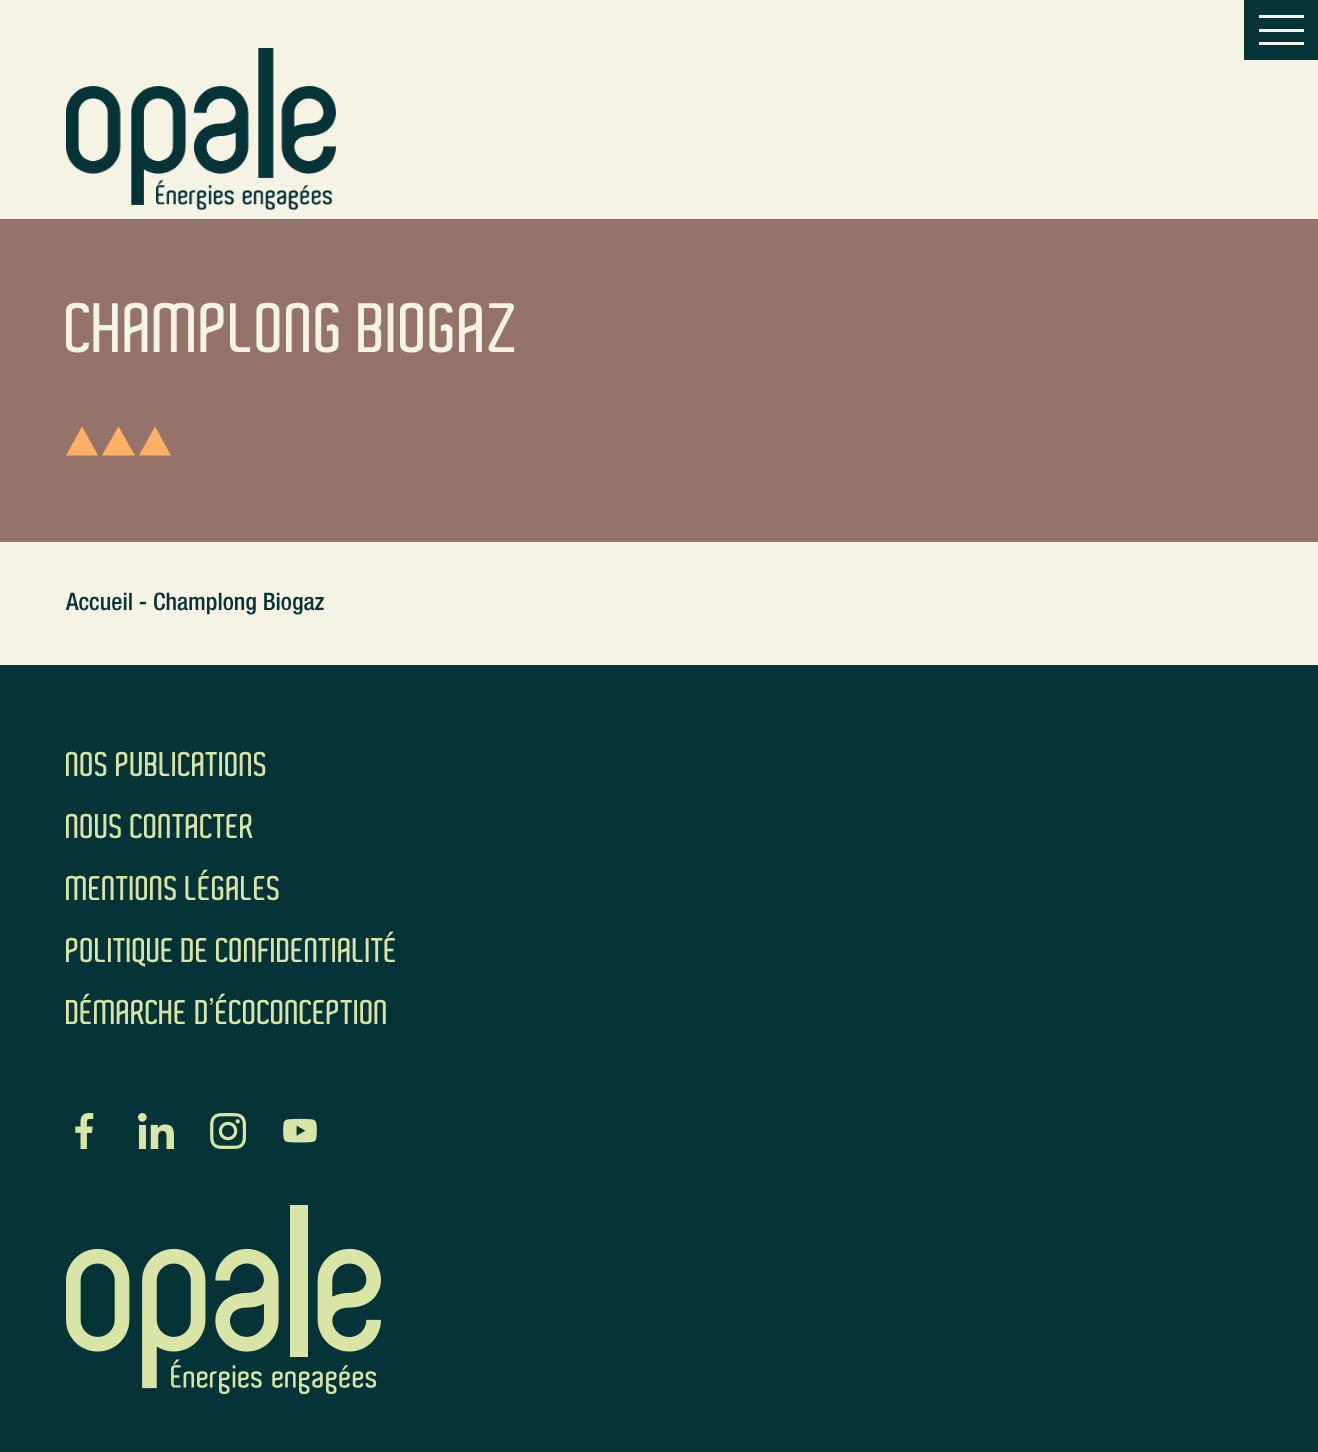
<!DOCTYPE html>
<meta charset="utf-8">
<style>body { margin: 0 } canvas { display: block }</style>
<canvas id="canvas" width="1318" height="1452"></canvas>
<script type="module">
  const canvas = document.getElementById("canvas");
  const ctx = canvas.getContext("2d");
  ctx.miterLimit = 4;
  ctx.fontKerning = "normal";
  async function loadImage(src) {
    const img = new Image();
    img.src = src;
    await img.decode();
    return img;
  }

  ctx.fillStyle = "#f5f3e4";
  ctx.fillRect(0, 0, 1318, 1452);
  ctx.fillStyle = "#053338";
  ctx.fillRect(1244, 0, 74, 60);
  ctx.fillStyle = "#f5f3e4";
  ctx.fillRect(1259, 15, 45, 3);
  ctx.fillRect(1259, 29, 45, 3);
  ctx.fillRect(1259, 42, 45, 3);
  ctx.drawImage(await loadImage("img1.png"), 66, 48, 270, 162);
  ctx.fillStyle = "#967369";
  ctx.fillRect(0, 219, 1318, 323);
  ctx.font = "600 67.25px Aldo";
  ctx.fillStyle = "#f5f3e4";
  ctx.fillText("CHAMPLONG BIOGAZ", 66, 352);
  ctx.fillStyle = "#ffb066";
  ctx.beginPath();
  ctx.moveTo(82, 426.5);
  ctx.lineTo(98, 455.5);
  ctx.lineTo(66, 455.5);
  ctx.closePath();
  ctx.fill();
  ctx.beginPath();
  ctx.moveTo(118.5, 426.5);
  ctx.lineTo(135, 455.5);
  ctx.lineTo(102, 455.5);
  ctx.closePath();
  ctx.fill();
  ctx.beginPath();
  ctx.moveTo(155, 426.5);
  ctx.lineTo(171, 455.5);
  ctx.lineTo(139, 455.5);
  ctx.closePath();
  ctx.fill();
  ctx.font = "500 24px Helvetica Neue";
  ctx.fillStyle = "#053338";
  ctx.fillText("Accueil - Champlong Biogaz", 66, 610);
  ctx.fillRect(0, 665, 1318, 787);
  ctx.font = "600 33px Aldo";
  ctx.fillStyle = "#d9e4a7";
  ctx.fillText("NOS PUBLICATIONS", 66, 776);
  ctx.fillText("NOUS CONTACTER", 66, 838);
  ctx.fillText("MENTIONS LÉGALES", 66, 900);
  ctx.fillText("POLITIQUE DE CONFIDENTIALITÉ", 66, 962);
  ctx.wordSpacing = "1px";
  ctx.fillText("DÉMARCHE D’ÉCOCONCEPTION", 66, 1024);
  ctx.drawImage(await loadImage("img2.png"), 75, 1113, 19, 36);
  ctx.drawImage(await loadImage("img3.png"), 138, 1113, 36, 36);
  ctx.drawImage(await loadImage("img4.png"), 210, 1113, 36, 36);
  ctx.drawImage(await loadImage("img5.png"), 283, 1118, 34, 25);
  ctx.drawImage(await loadImage("img6.png"), 66, 1205, 315, 189);
</script>
